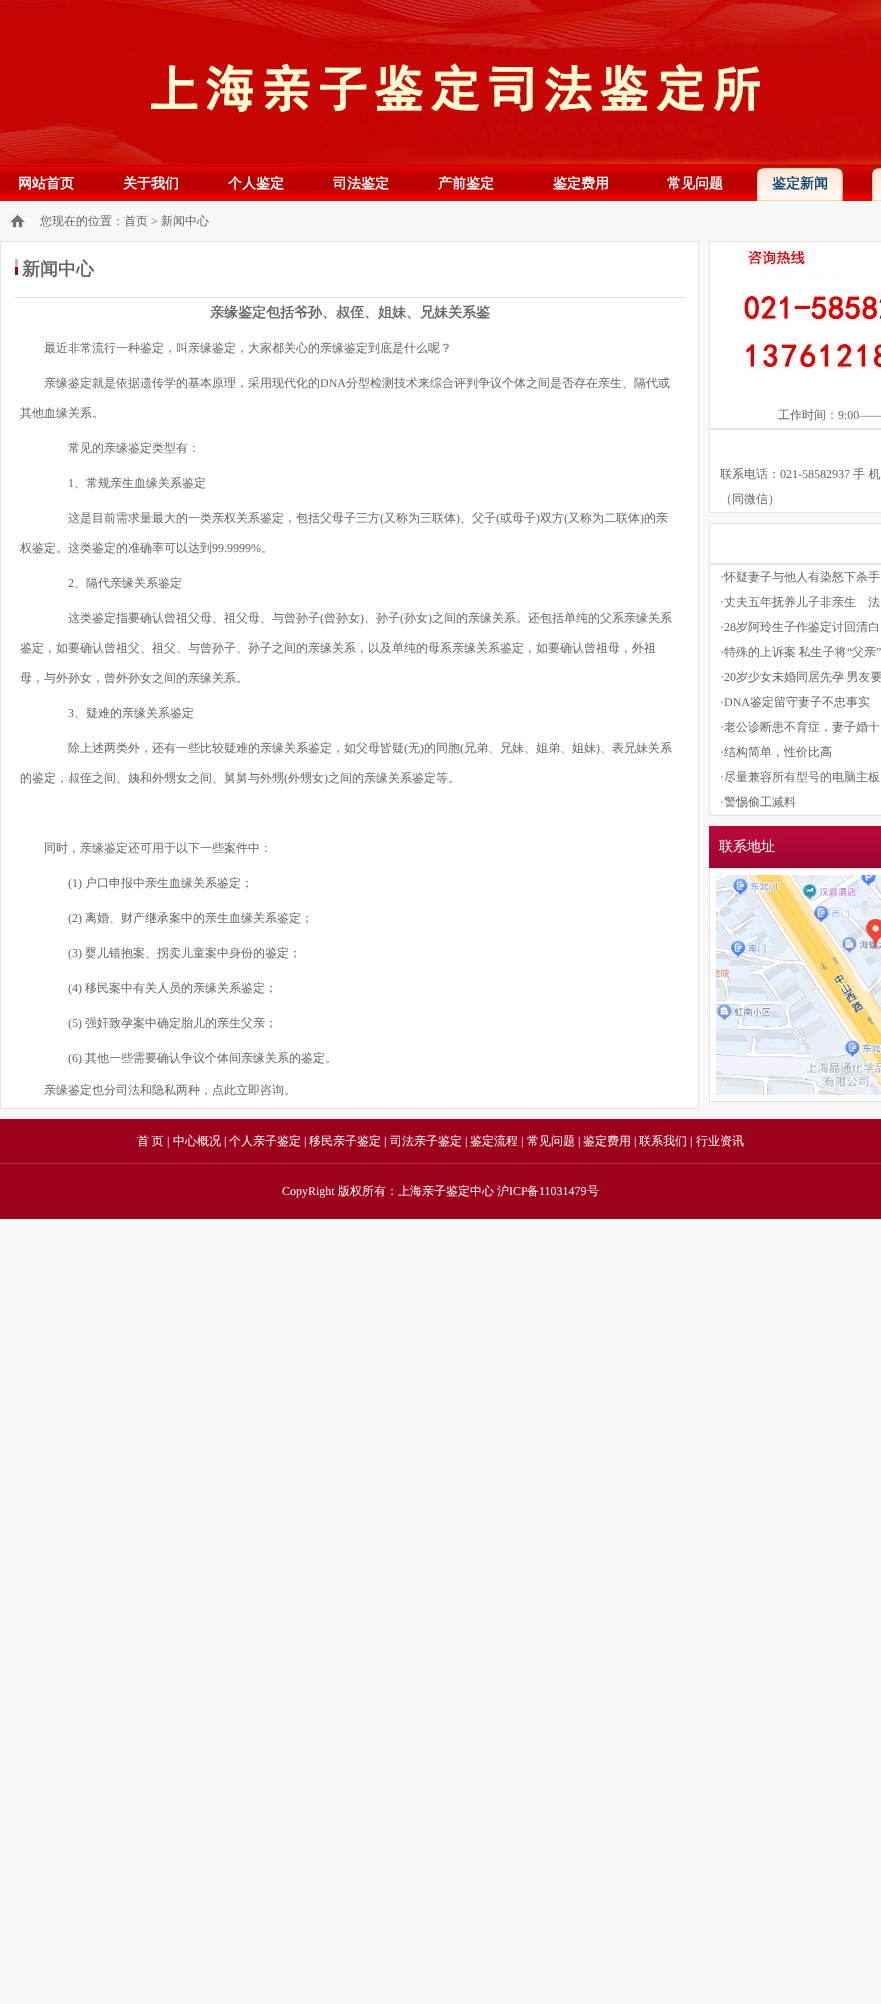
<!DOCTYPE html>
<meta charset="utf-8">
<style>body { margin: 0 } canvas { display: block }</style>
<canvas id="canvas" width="881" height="2004"></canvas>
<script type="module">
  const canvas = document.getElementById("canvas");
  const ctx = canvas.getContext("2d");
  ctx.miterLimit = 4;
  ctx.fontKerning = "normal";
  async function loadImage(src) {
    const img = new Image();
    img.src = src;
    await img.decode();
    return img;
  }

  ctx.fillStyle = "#f8f8f8";
  ctx.fillRect(0, 0, 881, 2004);
  ctx.drawImage(await loadImage("img1.png"), 0, 0, 881, 201);
  ctx.font = "bold 14px WenQuanYi Zen Hei";
  ctx.fillStyle = "#ffffff";
  ctx.fillText("网站首页", 18, 188);
  ctx.fillText("关于我们", 123, 188);
  ctx.fillText("个人鉴定", 228, 188);
  ctx.fillText("司法鉴定", 333, 188);
  ctx.fillText("产前鉴定", 438, 188);
  ctx.fillText("鉴定费用", 553, 188);
  ctx.fillText("常见问题", 667, 188);
  ctx.drawImage(await loadImage("img2.png"), 757, 167, 86, 34);
  ctx.fillStyle = "#10496b";
  ctx.fillText("鉴定新闻", 772, 188);
  ctx.drawImage(await loadImage("img3.png"), 872, 167, 9, 34);
  ctx.drawImage(await loadImage("img4.png"), 10, 214, 15, 14);
  ctx.font = "500 12px WenQuanYi Zen Hei";
  ctx.fillStyle = "#666666";
  ctx.fillText("您现在的位置：首页", 40, 225);
  ctx.font = "12px Liberation Serif";
  ctx.fillText(">", 151, 225);
  ctx.font = "500 12px WenQuanYi Zen Hei";
  ctx.fillText("新闻中心", 161, 225);
  ctx.fillStyle = "#ffffff";
  ctx.beginPath();
  ctx.rect(0.5, 241.5, 698, 867);
  ctx.fill();
  ctx.strokeStyle = "#e4e2e2";
  ctx.stroke();
  ctx.fillStyle = "#dddddd";
  ctx.fillRect(15, 297, 669, 1);
  ctx.drawImage(await loadImage("img5.png"), 15, 259, 3, 16);
  ctx.font = "bold 18px WenQuanYi Zen Hei";
  ctx.fillStyle = "#666666";
  ctx.fillText("新闻中心", 22, 275);
  ctx.font = "bold 14px WenQuanYi Zen Hei";
  ctx.fillText("亲缘鉴定包括爷孙、叔侄、姐妹、兄妹关系鉴", 210, 317);
  ctx.font = "500 12px WenQuanYi Zen Hei";
  ctx.fillText("最近非常流行一种鉴定，叫亲缘鉴定，大家都关心的亲缘鉴定到底是什么呢？", 44, 352);
  ctx.fillText("亲缘鉴定就是依据遗传学的基本原理，采用现代化的", 44, 387);
  ctx.font = "12px Liberation Serif";
  ctx.fillText("DNA", 320, 387);
  ctx.font = "500 12px WenQuanYi Zen Hei";
  ctx.fillText("分型检测技术来综合评判争议个体之间是否存在亲生、隔代或", 346, 387);
  ctx.fillText("其他血缘关系。", 20, 417);
  ctx.fillText("常见的亲缘鉴定类型有：", 68, 452);
  ctx.font = "12px Liberation Serif";
  ctx.fillText("1", 68, 487);
  ctx.font = "500 12px WenQuanYi Zen Hei";
  ctx.fillText("、常规亲生血缘关系鉴定", 74, 487);
  ctx.fillText("这是目前需求量最大的一类亲权关系鉴定，包括父母子三方", 68, 522);
  ctx.font = "12px Liberation Serif";
  ctx.fillText("(", 380, 522);
  ctx.font = "500 12px WenQuanYi Zen Hei";
  ctx.fillText("又称为三联体", 384, 522);
  ctx.font = "12px Liberation Serif";
  ctx.fillText(")", 456, 522);
  ctx.font = "500 12px WenQuanYi Zen Hei";
  ctx.fillText("、父子", 460, 522);
  ctx.font = "12px Liberation Serif";
  ctx.fillText("(", 496, 522);
  ctx.font = "500 12px WenQuanYi Zen Hei";
  ctx.fillText("或母子", 500, 522);
  ctx.font = "12px Liberation Serif";
  ctx.fillText(")", 536, 522);
  ctx.font = "500 12px WenQuanYi Zen Hei";
  ctx.fillText("双方", 540, 522);
  ctx.font = "12px Liberation Serif";
  ctx.fillText("(", 564, 522);
  ctx.font = "500 12px WenQuanYi Zen Hei";
  ctx.fillText("又称为二联体", 568, 522);
  ctx.font = "12px Liberation Serif";
  ctx.fillText(")", 640, 522);
  ctx.font = "500 12px WenQuanYi Zen Hei";
  ctx.fillText("的亲", 644, 522);
  ctx.fillText("权鉴定。这类鉴定的准确率可以达到", 20, 552);
  ctx.font = "12px Liberation Serif";
  ctx.fillText("99.9999%", 212, 552);
  ctx.font = "500 12px WenQuanYi Zen Hei";
  ctx.fillText("。", 261, 552);
  ctx.font = "12px Liberation Serif";
  ctx.fillText("2", 68, 587);
  ctx.font = "500 12px WenQuanYi Zen Hei";
  ctx.fillText("、隔代亲缘关系鉴定", 74, 587);
  ctx.fillText("这类鉴定指要确认曾祖父母、祖父母、与曾孙子", 68, 622);
  ctx.font = "12px Liberation Serif";
  ctx.fillText("(", 320, 622);
  ctx.font = "500 12px WenQuanYi Zen Hei";
  ctx.fillText("曾孙女", 324, 622);
  ctx.font = "12px Liberation Serif";
  ctx.fillText(")", 360, 622);
  ctx.font = "500 12px WenQuanYi Zen Hei";
  ctx.fillText("、孙子", 364, 622);
  ctx.font = "12px Liberation Serif";
  ctx.fillText("(", 400, 622);
  ctx.font = "500 12px WenQuanYi Zen Hei";
  ctx.fillText("孙女", 404, 622);
  ctx.font = "12px Liberation Serif";
  ctx.fillText(")", 428, 622);
  ctx.font = "500 12px WenQuanYi Zen Hei";
  ctx.fillText("之间的亲缘关系。还包括单纯的父系亲缘关系", 432, 622);
  ctx.fillText("鉴定，如要确认曾祖父、祖父、与曾孙子、孙子之间的亲缘关系，以及单纯的母系亲缘关系鉴定，如要确认曾祖母，外祖", 20, 652);
  ctx.fillText("母，与外孙女，曾外孙女之间的亲缘关系。", 20, 682);
  ctx.font = "12px Liberation Serif";
  ctx.fillText("3", 68, 717);
  ctx.font = "500 12px WenQuanYi Zen Hei";
  ctx.fillText("、疑难的亲缘关系鉴定", 74, 717);
  ctx.fillText("除上述两类外，还有一些比较疑难的亲缘关系鉴定，如父母皆疑", 68, 752);
  ctx.font = "12px Liberation Serif";
  ctx.fillText("(", 404, 752);
  ctx.font = "500 12px WenQuanYi Zen Hei";
  ctx.fillText("无", 408, 752);
  ctx.font = "12px Liberation Serif";
  ctx.fillText(")", 420, 752);
  ctx.font = "500 12px WenQuanYi Zen Hei";
  ctx.fillText("的同胞", 424, 752);
  ctx.font = "12px Liberation Serif";
  ctx.fillText("(", 460, 752);
  ctx.font = "500 12px WenQuanYi Zen Hei";
  ctx.fillText("兄弟、兄妹、姐弟、姐妹", 464, 752);
  ctx.font = "12px Liberation Serif";
  ctx.fillText(")", 596, 752);
  ctx.font = "500 12px WenQuanYi Zen Hei";
  ctx.fillText("、表兄妹关系", 600, 752);
  ctx.fillText("的鉴定，叔侄之间、姨和外甥女之间、舅舅与外甥", 20, 782);
  ctx.font = "12px Liberation Serif";
  ctx.fillText("(", 284, 782);
  ctx.font = "500 12px WenQuanYi Zen Hei";
  ctx.fillText("外甥女", 288, 782);
  ctx.font = "12px Liberation Serif";
  ctx.fillText(")", 324, 782);
  ctx.font = "500 12px WenQuanYi Zen Hei";
  ctx.fillText("之间的亲缘关系鉴定等。", 328, 782);
  ctx.fillText("同时，亲缘鉴定还可用于以下一些案件中：", 44, 852);
  ctx.font = "12px Liberation Serif";
  ctx.fillText("(1)", 68, 887);
  ctx.font = "500 12px WenQuanYi Zen Hei";
  ctx.fillText("户口申报中亲生血缘关系鉴定；", 85, 887);
  ctx.font = "12px Liberation Serif";
  ctx.fillText("(2)", 68, 922);
  ctx.font = "500 12px WenQuanYi Zen Hei";
  ctx.fillText("离婚、财产继承案中的亲生血缘关系鉴定；", 85, 922);
  ctx.font = "12px Liberation Serif";
  ctx.fillText("(3)", 68, 957);
  ctx.font = "500 12px WenQuanYi Zen Hei";
  ctx.fillText("婴儿错抱案、拐卖儿童案中身份的鉴定；", 85, 957);
  ctx.font = "12px Liberation Serif";
  ctx.fillText("(4)", 68, 992);
  ctx.font = "500 12px WenQuanYi Zen Hei";
  ctx.fillText("移民案中有关人员的亲缘关系鉴定；", 85, 992);
  ctx.font = "12px Liberation Serif";
  ctx.fillText("(5)", 68, 1027);
  ctx.font = "500 12px WenQuanYi Zen Hei";
  ctx.fillText("强奸致孕案中确定胎儿的亲生父亲；", 85, 1027);
  ctx.font = "12px Liberation Serif";
  ctx.fillText("(6)", 68, 1062);
  ctx.font = "500 12px WenQuanYi Zen Hei";
  ctx.fillText("其他一些需要确认争议个体间亲缘关系的鉴定。", 85, 1062);
  ctx.fillText("亲缘鉴定也分司法和隐私两种，点此立即咨询。", 44, 1094);
  ctx.fillStyle = "#ffffff";
  ctx.beginPath();
  ctx.rect(709.5, 241.5, 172, 187);
  ctx.fill();
  ctx.stroke();
  ctx.drawImage(await loadImage("img6.png"), 743, 250, 138, 120);
  ctx.fillStyle = "#666666";
  ctx.fillText("工作时间：", 778, 419);
  ctx.font = "12px Liberation Serif";
  ctx.fillText("9:00——", 838, 419);
  ctx.fillStyle = "#ffffff";
  ctx.beginPath();
  ctx.rect(709.5, 429.5, 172, 83);
  ctx.fill();
  ctx.stroke();
  ctx.font = "500 12px WenQuanYi Zen Hei";
  ctx.fillStyle = "#666666";
  ctx.fillText("联系电话：", 720, 478);
  ctx.font = "12px Liberation Serif";
  ctx.fillText("021-58582937", 780, 478);
  ctx.font = "500 12px WenQuanYi Zen Hei";
  ctx.fillText("手 机", 853, 478);
  ctx.fillText("（同微信）", 720, 503);
  ctx.fillStyle = "#ffffff";
  ctx.beginPath();
  ctx.rect(709.5, 523.5, 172, 40);
  ctx.fill();
  ctx.stroke();
  ctx.beginPath();
  ctx.rect(709.5, 564.5, 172, 251);
  ctx.fill();
  ctx.stroke();
  ctx.font = "12px Liberation Serif";
  ctx.fillStyle = "#666666";
  ctx.fillText("·", 720, 581);
  ctx.wordSpacing = "-1px";
  ctx.font = "500 12px WenQuanYi Zen Hei";
  ctx.fillText("怀疑妻子与他人有染怒下杀手", 724, 581);
  ctx.wordSpacing = "0px";
  ctx.font = "12px Liberation Serif";
  ctx.fillText("·", 720, 606);
  ctx.font = "500 12px WenQuanYi Zen Hei";
  ctx.fillText("丈夫五年抚养儿子非亲生　法", 724, 606);
  ctx.font = "12px Liberation Serif";
  ctx.fillText("·28", 720, 631);
  ctx.font = "500 12px WenQuanYi Zen Hei";
  ctx.fillText("岁阿玲生子作鉴定讨回清白", 736, 631);
  ctx.font = "12px Liberation Serif";
  ctx.fillText("·", 720, 656);
  ctx.wordSpacing = "-1px";
  ctx.font = "500 12px WenQuanYi Zen Hei";
  ctx.fillText("特殊的上诉案 私生子将", 724, 656);
  ctx.wordSpacing = "0px";
  ctx.font = "12px Liberation Serif";
  ctx.fillText("“", 847, 656);
  ctx.font = "500 12px WenQuanYi Zen Hei";
  ctx.fillText("父亲", 852, 656);
  ctx.font = "12px Liberation Serif";
  ctx.fillText("”", 876, 656);
  ctx.fillText("·20", 720, 681);
  ctx.wordSpacing = "-1px";
  ctx.font = "500 12px WenQuanYi Zen Hei";
  ctx.fillText("岁少女未婚同居先孕 男友要", 736, 681);
  ctx.wordSpacing = "0px";
  ctx.font = "12px Liberation Serif";
  ctx.fillText("·DNA", 720, 706);
  ctx.font = "500 12px WenQuanYi Zen Hei";
  ctx.fillText("鉴定留守妻子不忠事实", 750, 706);
  ctx.font = "12px Liberation Serif";
  ctx.fillText("·", 720, 731);
  ctx.font = "500 12px WenQuanYi Zen Hei";
  ctx.fillText("老公诊断患不育症，妻子婚十", 724, 731);
  ctx.font = "12px Liberation Serif";
  ctx.fillText("·", 720, 756);
  ctx.font = "500 12px WenQuanYi Zen Hei";
  ctx.fillText("结构简单，性价比高", 724, 756);
  ctx.font = "12px Liberation Serif";
  ctx.fillText("·", 720, 781);
  ctx.font = "500 12px WenQuanYi Zen Hei";
  ctx.fillText("尽量兼容所有型号的电脑主板", 724, 781);
  ctx.font = "12px Liberation Serif";
  ctx.fillText("·", 720, 806);
  ctx.font = "500 12px WenQuanYi Zen Hei";
  ctx.fillText("警惕偷工减料", 724, 806);
  ctx.drawImage(await loadImage("img7.png"), 709, 826, 172, 42);
  ctx.font = "500 14px WenQuanYi Zen Hei";
  ctx.fillStyle = "#ffffff";
  ctx.fillText("联系地址", 719, 851);
  ctx.beginPath();
  ctx.rect(709.5, 868.5, 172, 233);
  ctx.fill();
  ctx.stroke();
  ctx.drawImage(await loadImage("img8.png"), 716, 875, 165, 220);
  ctx.fillStyle = "#9d001b";
  ctx.fillRect(0, 1119, 881, 44);
  ctx.fillStyle = "#ae3347";
  ctx.fillRect(0, 1163, 881, 1);
  ctx.wordSpacing = "-1px";
  ctx.font = "500 12px WenQuanYi Zen Hei";
  ctx.fillStyle = "#ffffff";
  ctx.fillText("首 页", 137, 1145);
  ctx.wordSpacing = "0px";
  ctx.font = "12px Liberation Serif";
  ctx.fillText("|", 167, 1145);
  ctx.font = "500 12px WenQuanYi Zen Hei";
  ctx.fillText("中心概况", 173, 1145);
  ctx.font = "12px Liberation Serif";
  ctx.fillText("|", 224, 1145);
  ctx.font = "500 12px WenQuanYi Zen Hei";
  ctx.fillText("个人亲子鉴定", 229, 1145);
  ctx.font = "12px Liberation Serif";
  ctx.fillText("|", 304, 1145);
  ctx.font = "500 12px WenQuanYi Zen Hei";
  ctx.fillText("移民亲子鉴定", 309, 1145);
  ctx.font = "12px Liberation Serif";
  ctx.fillText("|", 384, 1145);
  ctx.font = "500 12px WenQuanYi Zen Hei";
  ctx.fillText("司法亲子鉴定", 390, 1145);
  ctx.font = "12px Liberation Serif";
  ctx.fillText("|", 465, 1145);
  ctx.font = "500 12px WenQuanYi Zen Hei";
  ctx.fillText("鉴定流程", 470, 1145);
  ctx.font = "12px Liberation Serif";
  ctx.fillText("|", 521, 1145);
  ctx.font = "500 12px WenQuanYi Zen Hei";
  ctx.fillText("常见问题", 527, 1145);
  ctx.font = "12px Liberation Serif";
  ctx.fillText("|", 578, 1145);
  ctx.font = "500 12px WenQuanYi Zen Hei";
  ctx.fillText("鉴定费用", 583, 1145);
  ctx.font = "12px Liberation Serif";
  ctx.fillText("|", 634, 1145);
  ctx.font = "500 12px WenQuanYi Zen Hei";
  ctx.fillText("联系我们", 639, 1145);
  ctx.font = "12px Liberation Serif";
  ctx.fillText("|", 690, 1145);
  ctx.font = "500 12px WenQuanYi Zen Hei";
  ctx.fillText("行业资讯", 696, 1145);
  ctx.fillStyle = "#9d001b";
  ctx.fillRect(0, 1164, 881, 55);
  ctx.font = "12px Liberation Serif";
  ctx.fillStyle = "#ffffff";
  ctx.fillText("CopyRight", 282, 1195);
  ctx.font = "500 12px WenQuanYi Zen Hei";
  ctx.fillText("版权所有：上海亲子鉴定中心", 338, 1195);
  ctx.fillText("沪", 497, 1195);
  ctx.font = "12px Liberation Serif";
  ctx.fillText("ICP", 509, 1195);
  ctx.font = "500 12px WenQuanYi Zen Hei";
  ctx.fillText("备", 527, 1195);
  ctx.font = "12px Liberation Serif";
  ctx.fillText("11031479", 539, 1195);
  ctx.font = "500 12px WenQuanYi Zen Hei";
  ctx.fillText("号", 587, 1195);
</script>
